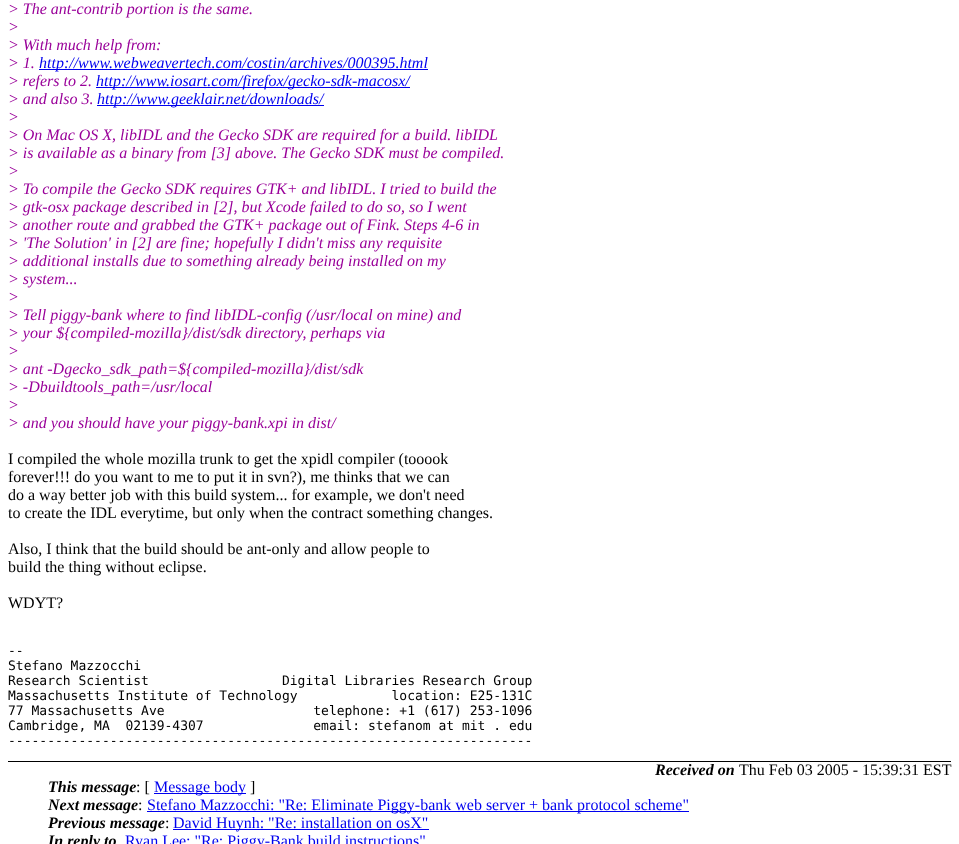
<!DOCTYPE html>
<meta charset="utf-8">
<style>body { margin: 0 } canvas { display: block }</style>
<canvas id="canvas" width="959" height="844"></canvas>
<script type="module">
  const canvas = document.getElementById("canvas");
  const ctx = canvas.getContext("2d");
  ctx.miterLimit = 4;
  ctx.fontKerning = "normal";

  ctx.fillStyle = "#ffffff";
  ctx.fillRect(0, 0, 959, 844);
  ctx.font = "italic 16px Liberation Serif";
  ctx.fillStyle = "#990099";
  ctx.fillText("> The ant-contrib portion is the same.", 8, 14);
  ctx.fillText(">", 8, 32);
  ctx.fillText("> With much help from:", 8, 50);
  ctx.fillText("> 1.", 8, 68);
  ctx.fillStyle = "#0000ee";
  ctx.fillRect(39, 69, 389, 1);
  ctx.fillText("http://www.webweavertech.com/costin/archives/000395.html", 39, 68);
  ctx.fillStyle = "#990099";
  ctx.fillText("> refers to 2.", 8, 86);
  ctx.fillStyle = "#0000ee";
  ctx.fillRect(96, 87, 314, 1);
  ctx.fillText("http://www.iosart.com/firefox/gecko-sdk-macosx/", 96, 86);
  ctx.fillStyle = "#990099";
  ctx.fillText("> and also 3.", 8, 104);
  ctx.fillStyle = "#0000ee";
  ctx.fillRect(97, 105, 227, 1);
  ctx.fillText("http://www.geeklair.net/downloads/", 97, 104);
  ctx.fillStyle = "#990099";
  ctx.fillText(">", 8, 122);
  ctx.fillText("> On Mac OS X, libIDL and the Gecko SDK are required for a build. libIDL", 8, 140);
  ctx.fillText("> is available as a binary from [3] above. The Gecko SDK must be compiled.", 8, 158);
  ctx.fillText(">", 8, 176);
  ctx.fillText("> To compile the Gecko SDK requires GTK+ and libIDL. I tried to build the", 8, 194);
  ctx.fillText("> gtk-osx package described in [2], but Xcode failed to do so, so I went", 8, 212);
  ctx.fillText("> another route and grabbed the GTK+ package out of Fink. Steps 4-6 in", 8, 230);
  ctx.fillText("> 'The Solution' in [2] are fine; hopefully I didn't miss any requisite", 8, 248);
  ctx.fillText("> additional installs due to something already being installed on my", 8, 266);
  ctx.fillText("> system...", 8, 284);
  ctx.fillText(">", 8, 302);
  ctx.fillText("> Tell piggy-bank where to find libIDL-config (/usr/local on mine) and", 8, 320);
  ctx.fillText("> your ${compiled-mozilla}/dist/sdk directory, perhaps via", 8, 338);
  ctx.fillText(">", 8, 356);
  ctx.fillText("> ant -Dgecko_sdk_path=${compiled-mozilla}/dist/sdk", 8, 374);
  ctx.fillText("> -Dbuildtools_path=/usr/local", 8, 392);
  ctx.fillText(">", 8, 410);
  ctx.fillText("> and you should have your piggy-bank.xpi in dist/", 8, 428);
  ctx.font = "16px Liberation Serif";
  ctx.fillStyle = "#000000";
  ctx.fillText("I compiled the whole mozilla trunk to get the xpidl compiler (tooook", 8, 464);
  ctx.fillText("forever!!! do you want to me to put it in svn?), me thinks that we can", 8, 482);
  ctx.fillText("do a way better job with this build system... for example, we don't need", 8, 500);
  ctx.fillText("to create the IDL everytime, but only when the contract something changes.", 8, 518);
  ctx.fillText("Also, I think that the build should be ant-only and allow people to", 8, 554);
  ctx.fillText("build the thing without eclipse.", 8, 572);
  ctx.fillText("WDYT?", 8, 608);
  ctx.font = "13px DejaVu Sans Mono";
  ctx.fillText("--", 8, 655);
  ctx.fillText("Stefano Mazzocchi", 8, 670);
  ctx.fillText("Research Scientist                 Digital Libraries Research Group", 8, 685);
  ctx.fillText("Massachusetts Institute of Technology            location: E25-131C", 8, 700);
  ctx.fillText("77 Massachusetts Ave                   telephone: +1 (617) 253-1096", 8, 715);
  ctx.fillText("Cambridge, MA  02139-4307              email: stefanom at mit . edu", 8, 730);
  ctx.fillText("-------------------------------------------------------------------", 8, 745);
  ctx.font = "italic bold 16px Liberation Serif";
  ctx.fillText("Received on", 655, 775);
  ctx.font = "16px Liberation Serif";
  ctx.fillText("Thu Feb 03 2005 - 15:39:31 EST", 739, 775);
  ctx.fillRect(8, 761, 943, 1);
  ctx.font = "italic bold 16px Liberation Serif";
  ctx.fillText("This message", 48, 792);
  ctx.font = "16px Liberation Serif";
  ctx.fillText(": [", 136, 792);
  ctx.fillStyle = "#0000ee";
  ctx.fillRect(154, 793, 92, 1);
  ctx.fillText("Message body", 154, 792);
  ctx.fillStyle = "#000000";
  ctx.fillText("]", 250, 792);
  ctx.font = "italic bold 16px Liberation Serif";
  ctx.fillText("Next message", 48, 810);
  ctx.font = "16px Liberation Serif";
  ctx.fillText(":", 138, 810);
  ctx.fillStyle = "#0000ee";
  ctx.fillRect(147, 811, 542, 1);
  ctx.fillText("Stefano Mazzocchi: \"Re: Eliminate Piggy-bank web server + bank protocol scheme\"", 147, 810);
  ctx.font = "italic bold 16px Liberation Serif";
  ctx.fillStyle = "#000000";
  ctx.fillText("Previous message", 48, 828);
  ctx.font = "16px Liberation Serif";
  ctx.fillText(":", 165, 828);
  ctx.fillStyle = "#0000ee";
  ctx.fillRect(173, 829, 256, 1);
  ctx.fillText("David Huynh: \"Re: installation on osX\"", 173, 828);
  ctx.font = "italic bold 16px Liberation Serif";
  ctx.fillStyle = "#000000";
  ctx.fillText("In reply to", 48, 846);
  ctx.font = "16px Liberation Serif";
  ctx.fillStyle = "#0000ee";
  ctx.fillText("Ryan Lee: \"Re: Piggy-Bank build instructions\"", 125, 846);
</script>
